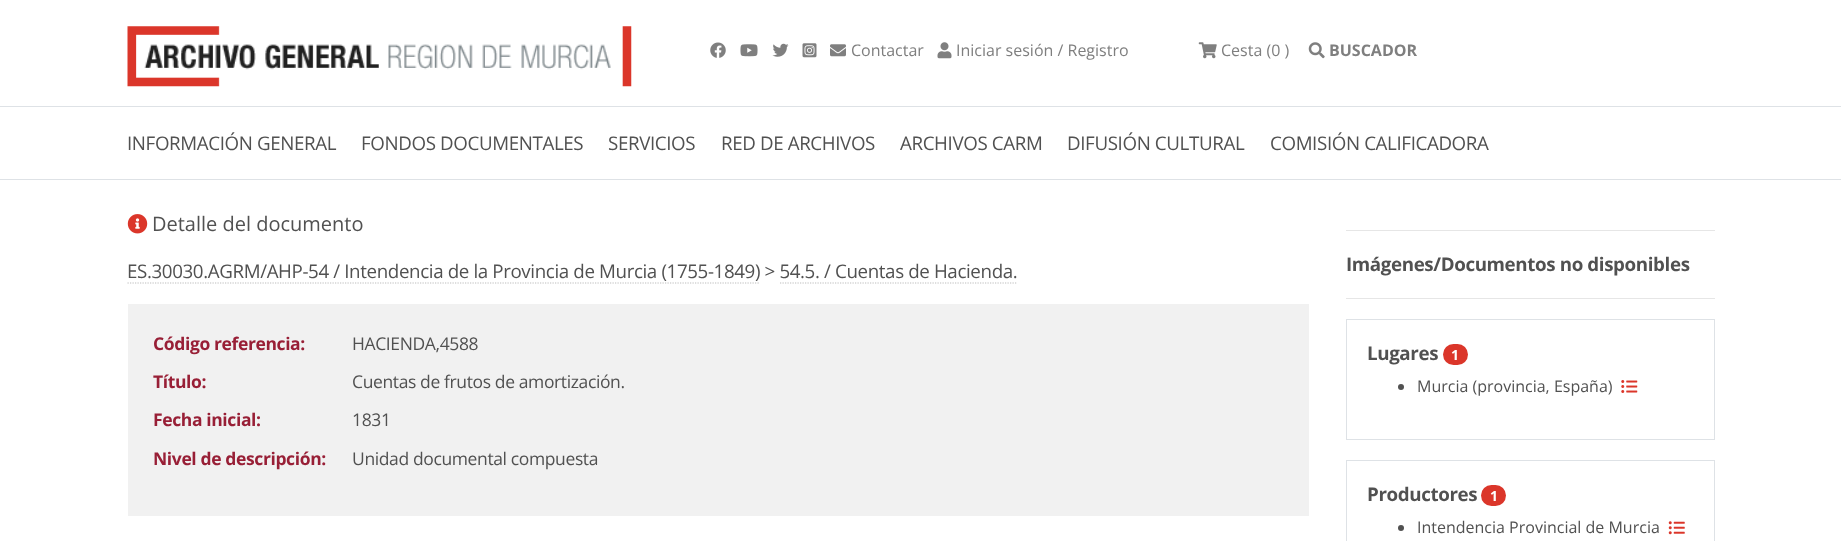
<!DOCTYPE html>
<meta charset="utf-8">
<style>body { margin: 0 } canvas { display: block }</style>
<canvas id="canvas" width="1841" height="541"></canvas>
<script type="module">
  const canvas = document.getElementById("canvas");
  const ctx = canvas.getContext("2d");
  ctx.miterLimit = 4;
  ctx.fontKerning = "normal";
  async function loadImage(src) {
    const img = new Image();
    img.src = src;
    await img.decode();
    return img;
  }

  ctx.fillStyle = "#ffffff";
  ctx.fillRect(0, 0, 1841, 541);
  ctx.drawImage(await loadImage("img1.png"), 127, 26, 505, 61);
  ctx.drawImage(await loadImage("img2.png"), 710, 42, 16, 16);
  ctx.drawImage(await loadImage("img3.png"), 740, 44, 18, 13);
  ctx.drawImage(await loadImage("img4.png"), 772, 43, 17, 14);
  ctx.drawImage(await loadImage("img5.png"), 802, 43, 15, 15);
  ctx.drawImage(await loadImage("img6.png"), 830, 44, 16, 13);
  ctx.font = "16px Open Sans";
  ctx.fillStyle = "#7f7f7f";
  ctx.fillText("Contactar", 851, 56);
  ctx.drawImage(await loadImage("img7.png"), 937, 42, 15, 17);
  ctx.fillText("Iniciar sesión / Registro", 956, 56);
  ctx.drawImage(await loadImage("img8.png"), 1198, 42, 19, 17);
  ctx.fillText("Cesta (0 )", 1221, 56);
  ctx.drawImage(await loadImage("img9.png"), 1308, 42, 17, 17);
  ctx.font = "bold 16px Open Sans";
  ctx.fillText("BUSCADOR", 1329, 56);
  ctx.fillStyle = "#dee2e6";
  ctx.fillRect(0, 106, 1841, 1);
  ctx.fillRect(0, 179, 1841, 1);
  ctx.letterSpacing = "-0.38px";
  ctx.font = "18.75px Open Sans";
  ctx.fillStyle = "#515151";
  ctx.fillText("INFORMACIÓN GENERAL", 127, 150);
  ctx.fillText("FONDOS DOCUMENTALES", 361, 150);
  ctx.fillText("SERVICIOS", 608, 150);
  ctx.fillText("RED DE ARCHIVOS", 721, 150);
  ctx.fillText("ARCHIVOS CARM", 900, 150);
  ctx.fillText("DIFUSIÓN CULTURAL", 1067, 150);
  ctx.fillText("COMISIÓN CALIFICADORA", 1270, 150);
  ctx.drawImage(await loadImage("img10.png"), 127, 214, 21, 20);
  ctx.letterSpacing = "0px";
  ctx.font = "20px Open Sans";
  ctx.fillText("Detalle del documento", 152, 231);
  ctx.letterSpacing = "-0.38px";
  ctx.font = "18.75px Open Sans";
  ctx.fillText("ES.30030.AGRM/AHP-54 / Intendencia de la Provincia de Murcia (1755-1849) > 54.5. / Cuentas de Hacienda.", 127, 278);
  ctx.beginPath();
  ctx.moveTo(127.5, 283);
  ctx.lineTo(760, 283);
  ctx.strokeStyle = "#bdbdbd";
  ctx.lineWidth = 1.2;
  ctx.setLineDash([1.25, 1.25]);
  ctx.stroke();
  ctx.beginPath();
  ctx.moveTo(780, 283);
  ctx.lineTo(1017.5, 283);
  ctx.stroke();
  ctx.fillStyle = "#f1f1f1";
  ctx.fillRect(128, 304, 1181, 212);
  ctx.font = "bold 17.5px Open Sans";
  ctx.fillStyle = "#981f36";
  ctx.fillText("Código referencia:", 153, 350);
  ctx.font = "17.5px Open Sans";
  ctx.fillStyle = "#515151";
  ctx.fillText("HACIENDA,4588", 352, 350);
  ctx.font = "bold 17.5px Open Sans";
  ctx.fillStyle = "#981f36";
  ctx.fillText("Título:", 153, 388);
  ctx.font = "17.5px Open Sans";
  ctx.fillStyle = "#515151";
  ctx.fillText("Cuentas de frutos de amortización.", 352, 388);
  ctx.font = "bold 17.5px Open Sans";
  ctx.fillStyle = "#981f36";
  ctx.fillText("Fecha inicial:", 153, 426);
  ctx.font = "17.5px Open Sans";
  ctx.fillStyle = "#515151";
  ctx.fillText("1831", 352, 426);
  ctx.font = "bold 17.5px Open Sans";
  ctx.fillStyle = "#981f36";
  ctx.fillText("Nivel de descripción:", 153, 465);
  ctx.font = "17.5px Open Sans";
  ctx.fillStyle = "#515151";
  ctx.fillText("Unidad documental compuesta", 352, 465);
  ctx.fillStyle = "#e6e6e6";
  ctx.fillRect(1346, 230, 369, 1);
  ctx.font = "bold 18.75px Open Sans";
  ctx.fillStyle = "#515151";
  ctx.fillText("Imágenes/Documentos no disponibles", 1346, 271);
  ctx.fillStyle = "#e6e6e6";
  ctx.fillRect(1346, 298, 369, 1);
  ctx.strokeStyle = "#dee2e6";
  ctx.lineWidth = 1;
  ctx.setLineDash([]);
  ctx.strokeRect(1346.5, 319.5, 368, 120);
  ctx.fillStyle = "#515151";
  ctx.fillText("Lugares", 1367, 360);
  ctx.fillStyle = "#db362a";
  ctx.beginPath();
  ctx.roundRect(1443, 344, 25, 21, 10.5);
  ctx.fill();
  ctx.font = "bold 14px Open Sans";
  ctx.fillStyle = "#ffffff";
  ctx.fillText("1", 1451, 360);
  ctx.fillStyle = "#515151";
  ctx.beginPath();
  ctx.arc(1401, 387, 3, 0, Math.PI * 2);
  ctx.fill();
  ctx.letterSpacing = "0px";
  ctx.font = "16px Open Sans";
  ctx.fillText("Murcia (provincia, España)", 1417, 392);
  ctx.drawImage(await loadImage("img11.png"), 1621, 380, 17, 13);
  ctx.strokeRect(1346.5, 460.5, 368, 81);
  ctx.letterSpacing = "-0.38px";
  ctx.font = "bold 18.75px Open Sans";
  ctx.fillText("Productores", 1367, 501);
  ctx.fillStyle = "#db362a";
  ctx.beginPath();
  ctx.roundRect(1481, 485, 25, 21, 10.5);
  ctx.fill();
  ctx.font = "bold 14px Open Sans";
  ctx.fillStyle = "#ffffff";
  ctx.fillText("1", 1490, 501);
  ctx.fillStyle = "#515151";
  ctx.beginPath();
  ctx.arc(1401, 528, 3, 0, Math.PI * 2);
  ctx.fill();
  ctx.letterSpacing = "0px";
  ctx.font = "16px Open Sans";
  ctx.fillText("Intendencia Provincial de Murcia", 1417, 533);
  ctx.drawImage(await loadImage("img12.png"), 1668, 521, 17, 14);
</script>
